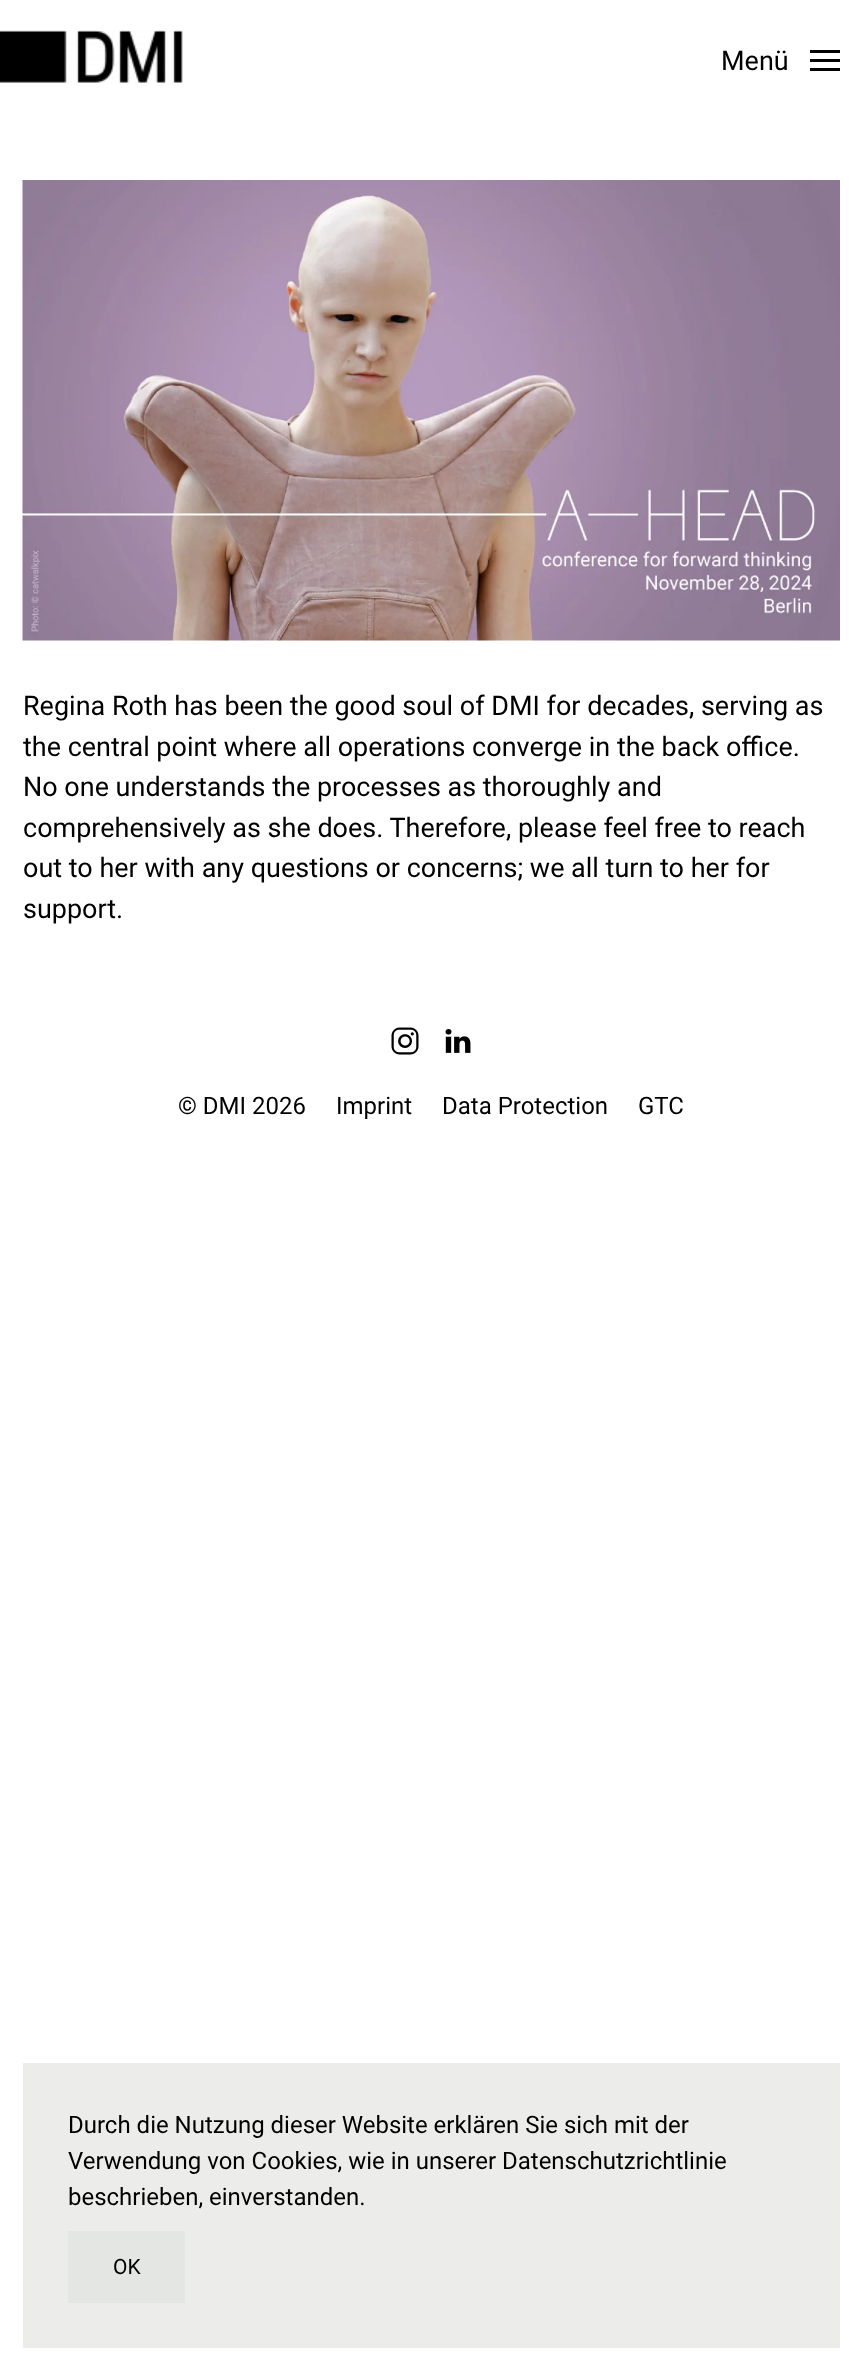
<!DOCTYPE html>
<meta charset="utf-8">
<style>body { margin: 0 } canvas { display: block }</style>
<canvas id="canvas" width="862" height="2369"></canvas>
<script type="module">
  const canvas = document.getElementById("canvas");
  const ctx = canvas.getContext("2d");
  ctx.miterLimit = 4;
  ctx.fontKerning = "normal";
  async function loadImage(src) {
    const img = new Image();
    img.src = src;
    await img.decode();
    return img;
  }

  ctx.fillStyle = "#ffffff";
  ctx.fillRect(0, 0, 862, 2369);
  ctx.drawImage(await loadImage("img1.png"), 0, 30, 183, 53);
  ctx.font = "27px Roboto";
  ctx.fillStyle = "#000000";
  ctx.fillText("Menü", 721, 70);
  ctx.fillRect(810, 50, 30, 3);
  ctx.fillRect(810, 59, 30, 3);
  ctx.fillRect(810, 68, 30, 3);
  ctx.drawImage(await loadImage("img2.png"), 22, 180, 818, 461);
  ctx.fillText("Regina Roth has been the good soul of DMI for decades, serving as", 23, 715);
  ctx.fillText("the central point where all operations converge in the back office.", 23, 756);
  ctx.fillText("No one understands the processes as thoroughly and", 23, 796);
  ctx.fillText("comprehensively as she does. Therefore, please feel free to reach", 23, 837);
  ctx.fillText("out to her with any questions or concerns; we all turn to her for", 23, 877);
  ctx.fillText("support.", 23, 918);
  ctx.drawImage(await loadImage("img3.png"), 391, 1027, 28, 28);
  ctx.drawImage(await loadImage("img4.png"), 445, 1029, 26, 24);
  ctx.font = "24px Roboto";
  ctx.fillText("© DMI 2026", 178, 1114);
  ctx.fillText("Imprint", 336, 1114);
  ctx.fillText("Data Protection", 442, 1114);
  ctx.fillText("GTC", 638, 1114);
  ctx.fillStyle = "#ecedeb";
  ctx.fillRect(23, 2063, 817, 285);
  ctx.fillStyle = "#000000";
  ctx.fillText("Durch die Nutzung dieser Website erklären Sie sich mit der", 68, 2133);
  ctx.fillText("Verwendung von Cookies, wie in unserer Datenschutzrichtlinie", 68, 2169);
  ctx.fillText("beschrieben, einverstanden.", 68, 2205);
  ctx.fillStyle = "#e4e6e3";
  ctx.fillRect(68, 2231, 117, 72);
  ctx.font = "21px Roboto";
  ctx.fillStyle = "#000000";
  ctx.fillText("OK", 113, 2274);
</script>
